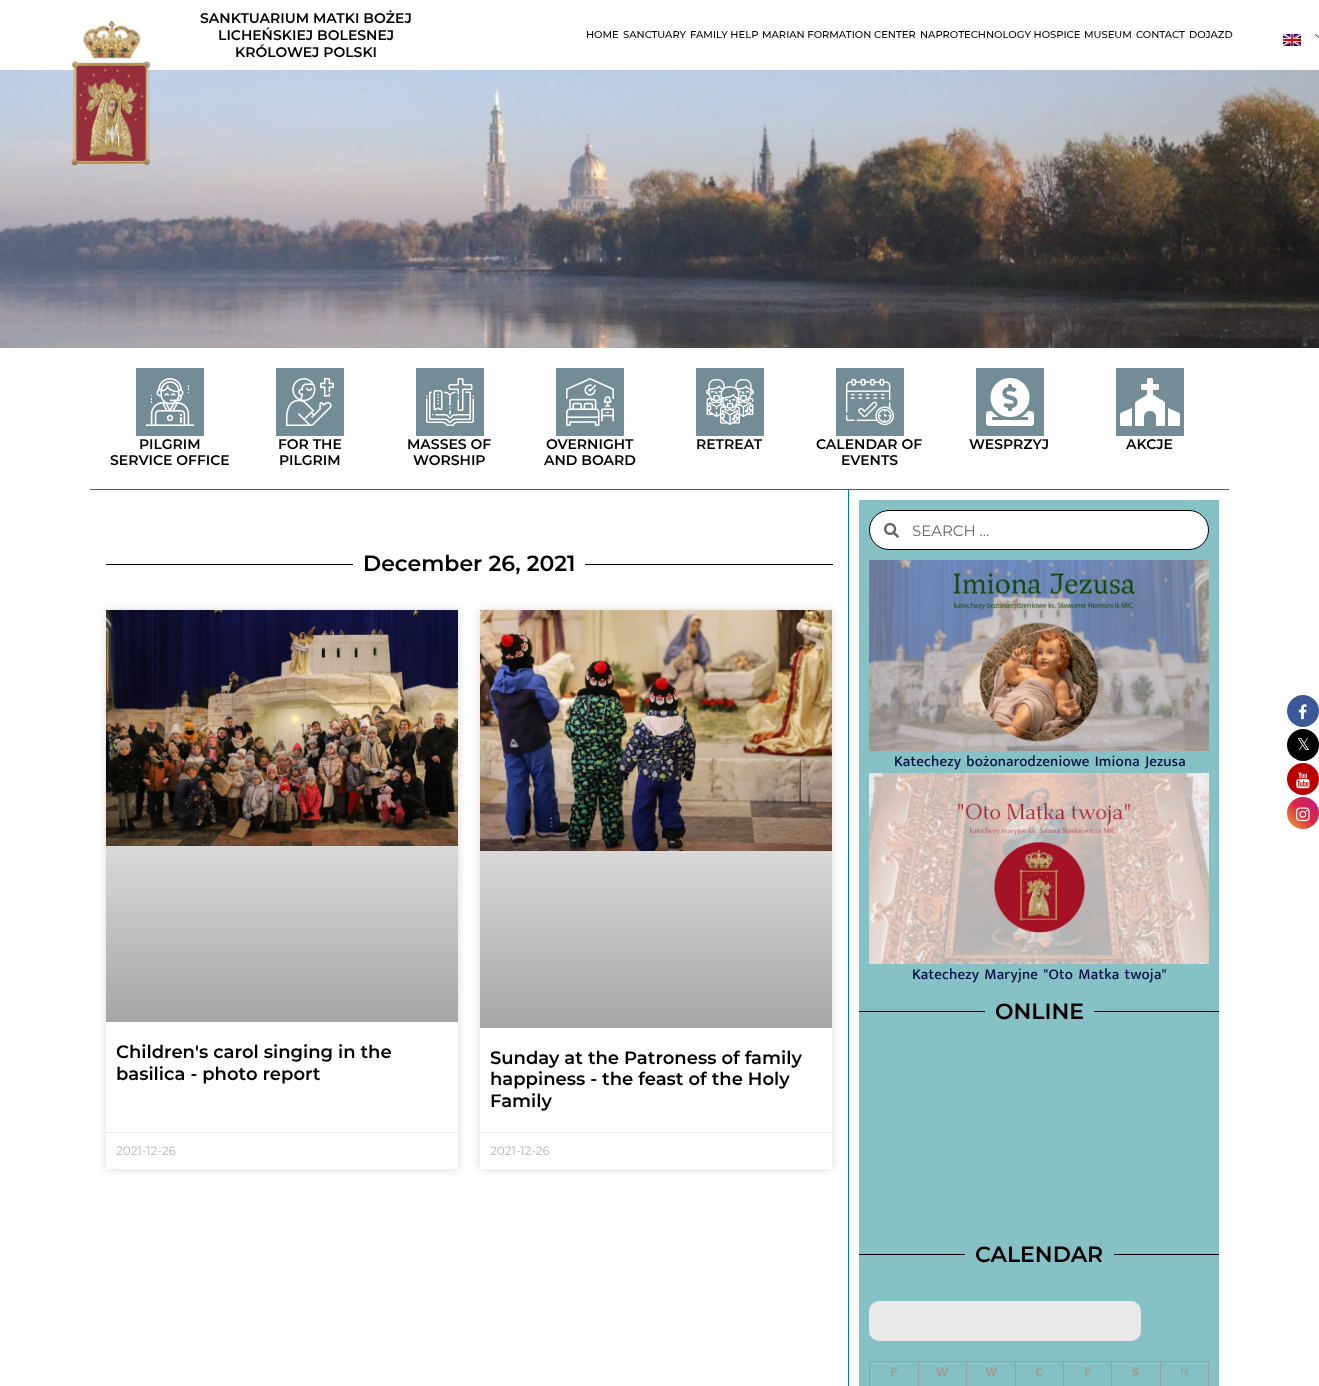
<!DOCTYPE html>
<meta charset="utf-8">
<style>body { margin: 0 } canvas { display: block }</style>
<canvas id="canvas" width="1319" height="1386"></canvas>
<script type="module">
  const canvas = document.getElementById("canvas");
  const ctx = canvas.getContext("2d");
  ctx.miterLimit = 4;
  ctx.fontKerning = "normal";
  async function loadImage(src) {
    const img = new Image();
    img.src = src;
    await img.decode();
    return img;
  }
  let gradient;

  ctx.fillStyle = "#ffffff";
  ctx.fillRect(0, 0, 1319, 1386);
  ctx.drawImage(await loadImage("img4.png"), 0, 70, 1319, 278);
  ctx.drawImage(await loadImage("img1.png"), 71, 20, 80, 146);
  ctx.font = "600 14px Montserrat";
  ctx.fillStyle = "#000000";
  ctx.fillText("SANKTUARIUM MATKI BOŻEJ", 200, 23);
  ctx.fillText("LICHEŃSKIEJ BOLESNEJ", 218, 40);
  ctx.fillText("KRÓLOWEJ POLSKI", 235, 57);
  ctx.font = "500 10px Montserrat";
  ctx.fillText("HOME", 586, 38);
  ctx.fillText("SANCTUARY", 623, 38);
  ctx.fillText("FAMILY HELP", 690, 38);
  ctx.fillText("MARIAN FORMATION CENTER", 762, 38);
  ctx.fillText("NAPROTECHNOLOGY HOSPICE", 920, 38);
  ctx.fillText("MUSEUM", 1084, 38);
  ctx.fillText("CONTACT", 1136, 38);
  ctx.fillText("DOJAZD", 1189, 38);
  ctx.drawImage(await loadImage("img2.png"), 1315, 33, 4, 5);
  ctx.drawImage(await loadImage("img3.png"), 1283, 34, 18, 12);
  ctx.fillStyle = "#748c95";
  ctx.fillRect(136, 368, 68, 68);
  ctx.drawImage(await loadImage("img5.png"), 146, 378, 48, 48);
  ctx.font = "600 14px Montserrat";
  ctx.fillStyle = "#000000";
  ctx.fillText("PILGRIM", 139, 449);
  ctx.fillText("SERVICE OFFICE", 110, 465);
  ctx.fillStyle = "#748c95";
  ctx.fillRect(276, 368, 68, 68);
  ctx.drawImage(await loadImage("img6.png"), 286, 378, 48, 48);
  ctx.fillStyle = "#000000";
  ctx.fillText("FOR THE", 278, 449);
  ctx.fillText("PILGRIM", 279, 465);
  ctx.fillStyle = "#748c95";
  ctx.fillRect(416, 368, 68, 68);
  ctx.drawImage(await loadImage("img7.png"), 426, 378, 48, 48);
  ctx.fillStyle = "#000000";
  ctx.fillText("MASSES OF", 407, 449);
  ctx.fillText("WORSHIP", 413, 465);
  ctx.fillStyle = "#748c95";
  ctx.fillRect(556, 368, 68, 68);
  ctx.drawImage(await loadImage("img8.png"), 566, 378, 48, 48);
  ctx.fillStyle = "#000000";
  ctx.fillText("OVERNIGHT", 546, 449);
  ctx.fillText("AND BOARD", 544, 465);
  ctx.fillStyle = "#748c95";
  ctx.fillRect(696, 368, 68, 68);
  ctx.drawImage(await loadImage("img9.png"), 706, 379, 48, 46);
  ctx.fillStyle = "#000000";
  ctx.fillText("RETREAT", 696, 449);
  ctx.fillStyle = "#748c95";
  ctx.fillRect(836, 368, 68, 68);
  ctx.drawImage(await loadImage("img10.png"), 846, 378, 48, 48);
  ctx.fillStyle = "#000000";
  ctx.fillText("CALENDAR OF", 816, 449);
  ctx.fillText("EVENTS", 841, 465);
  ctx.fillStyle = "#748c95";
  ctx.fillRect(976, 368, 68, 68);
  ctx.drawImage(await loadImage("img11.png"), 986, 378, 48, 48);
  ctx.fillStyle = "#000000";
  ctx.fillText("WESPRZYJ", 969, 449);
  ctx.fillStyle = "#748c95";
  ctx.fillRect(1116, 368, 68, 68);
  ctx.drawImage(await loadImage("img12.png"), 1120, 378, 60, 48);
  ctx.fillStyle = "#000000";
  ctx.fillText("AKCJE", 1126, 449);
  ctx.fillStyle = "#0076b8";
  ctx.fillRect(90, 489, 1139, 1);
  ctx.fillRect(848, 489, 1, 897);
  ctx.fillStyle = "#000000";
  ctx.fillRect(106, 564, 247, 1);
  ctx.font = "600 22px Montserrat";
  ctx.fillText("December 26, 2021", 363, 571);
  ctx.fillRect(585, 564, 248, 1);
  ctx.save();
  ctx.beginPath();
  ctx.moveTo(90, 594);
  ctx.lineTo(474, 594);
  ctx.lineTo(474, 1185);
  ctx.lineTo(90, 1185);
  ctx.closePath();
  ctx.moveTo(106, 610);
  ctx.lineTo(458, 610);
  ctx.lineTo(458, 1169);
  ctx.lineTo(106, 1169);
  ctx.closePath();
  ctx.clip("evenodd");
  ctx.fillStyle = "rgba(0, 0, 0, 0.15)";
  ctx.filter = "blur(5px)";
  ctx.beginPath();
  ctx.rect(106, 610, 352, 559);
  ctx.fill();
  ctx.filter = "none";
  ctx.restore();
  ctx.drawImage(await loadImage("img13.png"), 106, 610, 352, 236);
  gradient = ctx.createLinearGradient(282, 1022, 282, 610);
  gradient.addColorStop(0, "rgba(0, 0, 0, 0.35)");
  gradient.addColorStop(0.75, "rgba(0, 0, 0, 0)");
  ctx.fillStyle = gradient;
  ctx.fillRect(106, 732, 352, 290);
  ctx.font = "600 18px Montserrat";
  ctx.fillStyle = "#000000";
  ctx.fillText("Children's carol singing in the", 116, 1058);
  ctx.fillText("basilica - photo report", 116, 1080);
  ctx.fillStyle = "#ececec";
  ctx.fillRect(106, 1132, 352, 1);
  ctx.font = "12px Montserrat";
  ctx.fillStyle = "#b4b4b4";
  ctx.fillText("2021-12-26", 116, 1155);
  ctx.save();
  ctx.beginPath();
  ctx.moveTo(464, 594);
  ctx.lineTo(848, 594);
  ctx.lineTo(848, 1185);
  ctx.lineTo(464, 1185);
  ctx.closePath();
  ctx.moveTo(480, 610);
  ctx.lineTo(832, 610);
  ctx.lineTo(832, 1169);
  ctx.lineTo(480, 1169);
  ctx.closePath();
  ctx.clip("evenodd");
  ctx.fillStyle = "rgba(0, 0, 0, 0.15)";
  ctx.filter = "blur(5px)";
  ctx.beginPath();
  ctx.rect(480, 610, 352, 559);
  ctx.fill();
  ctx.filter = "none";
  ctx.restore();
  ctx.drawImage(await loadImage("img14.png"), 480, 610, 352, 241);
  gradient = ctx.createLinearGradient(656, 1028, 656, 610);
  gradient.addColorStop(0, "rgba(0, 0, 0, 0.35)");
  gradient.addColorStop(0.75, "rgba(0, 0, 0, 0)");
  ctx.fillStyle = gradient;
  ctx.fillRect(480, 734, 352, 294);
  ctx.font = "600 18px Montserrat";
  ctx.fillStyle = "#000000";
  ctx.fillText("Sunday at the Patroness of family", 490, 1064);
  ctx.fillText("happiness - the feast of the Holy", 490, 1085);
  ctx.fillText("Family", 490, 1107);
  ctx.fillStyle = "#ececec";
  ctx.fillRect(480, 1132, 352, 1);
  ctx.font = "12px Montserrat";
  ctx.fillStyle = "#b4b4b4";
  ctx.fillText("2021-12-26", 490, 1155);
  ctx.fillStyle = "#85c1c5";
  ctx.fillRect(859, 500, 360, 886);
  ctx.fillStyle = "#ffffff";
  ctx.beginPath();
  ctx.roundRect(869.5, 510.5, 339, 39, 19.5);
  ctx.fill();
  ctx.strokeStyle = "#000000";
  ctx.stroke();
  ctx.drawImage(await loadImage("img15.png"), 884, 522, 15, 16);
  ctx.font = "15px Montserrat";
  ctx.fillStyle = "#666666";
  ctx.fillText("SEARCH ...", 912, 536);
  ctx.drawImage(await loadImage("img16.png"), 869, 560, 340, 191);
  ctx.letterSpacing = "0.2px";
  ctx.wordSpacing = "1.5px";
  ctx.font = "500 15px Mukta";
  ctx.fillStyle = "#040f43";
  ctx.fillText("Katechezy bożonarodzeniowe Imiona Jezusa", 894, 766);
  ctx.drawImage(await loadImage("img17.png"), 869, 773, 340, 191);
  ctx.fillText("Katechezy Maryjne \"Oto Matka twoja\"", 912, 979);
  ctx.fillStyle = "#000000";
  ctx.fillRect(859, 1011, 126, 1);
  ctx.letterSpacing = "0px";
  ctx.wordSpacing = "0px";
  ctx.font = "600 22px Montserrat";
  ctx.fillText("ONLINE", 995, 1019);
  ctx.fillRect(1094, 1011, 125, 1);
  ctx.fillRect(859, 1254, 106, 1);
  ctx.fillText("CALENDAR", 975, 1262);
  ctx.fillRect(1114, 1254, 105, 1);
  ctx.fillStyle = "#e9e9e9";
  ctx.beginPath();
  ctx.roundRect(869, 1301, 272, 40, 10);
  ctx.fill();
  ctx.fillStyle = "#9e9e9e";
  ctx.fillRect(869, 1361, 1, 25);
  ctx.fillRect(870, 1361, 339, 1);
  ctx.fillRect(918, 1361, 1, 25);
  ctx.font = "bold 12px Noto Sans";
  ctx.fillText("P", 890, 1376);
  ctx.fillRect(966, 1361, 1, 25);
  ctx.font = "900 12px Noto Sans";
  ctx.fillText("W", 936, 1376);
  ctx.fillRect(1015, 1361, 1, 25);
  ctx.fillText("W", 985, 1376);
  ctx.fillRect(1063, 1361, 1, 25);
  ctx.fillText("C", 1035, 1376);
  ctx.fillRect(1111, 1361, 1, 25);
  ctx.font = "bold 12px Noto Sans";
  ctx.fillText("P", 1084, 1376);
  ctx.fillRect(1160, 1361, 1, 25);
  ctx.font = "900 12px Noto Sans";
  ctx.fillText("S", 1132, 1376);
  ctx.fillRect(1208, 1361, 1, 25);
  ctx.font = "12px Noto Sans";
  ctx.fillText("N", 1180, 1376);
  ctx.fillStyle = "#3b5998";
  ctx.beginPath();
  ctx.arc(1303, 711, 16, 0, Math.PI * 2);
  ctx.fill();
  ctx.drawImage(await loadImage("img18.png"), 1298, 704, 9, 16);
  ctx.fillStyle = "#000000";
  ctx.beginPath();
  ctx.arc(1303, 745, 16, 0, Math.PI * 2);
  ctx.fill();
  ctx.font = "16px DejaVu Sans";
  ctx.fillStyle = "#ffffff";
  ctx.fillText("𝕏", 1297, 750);
  ctx.fillStyle = "#bb0000";
  ctx.beginPath();
  ctx.arc(1303, 779, 16, 0, Math.PI * 2);
  ctx.fill();
  ctx.drawImage(await loadImage("img19.png"), 1296, 772, 14, 17);
  gradient = ctx.createLinearGradient(1287, 829, 1319, 797);
  gradient.addColorStop(0, "#f09433");
  gradient.addColorStop(0.25, "#e6683c");
  gradient.addColorStop(0.5, "#dc2743");
  gradient.addColorStop(0.75, "#cc2366");
  gradient.addColorStop(1, "#bc1888");
  ctx.fillStyle = gradient;
  ctx.beginPath();
  ctx.arc(1303, 813, 16, 0, Math.PI * 2);
  ctx.fill();
  ctx.drawImage(await loadImage("img20.png"), 1296, 807, 14, 15);
</script>
